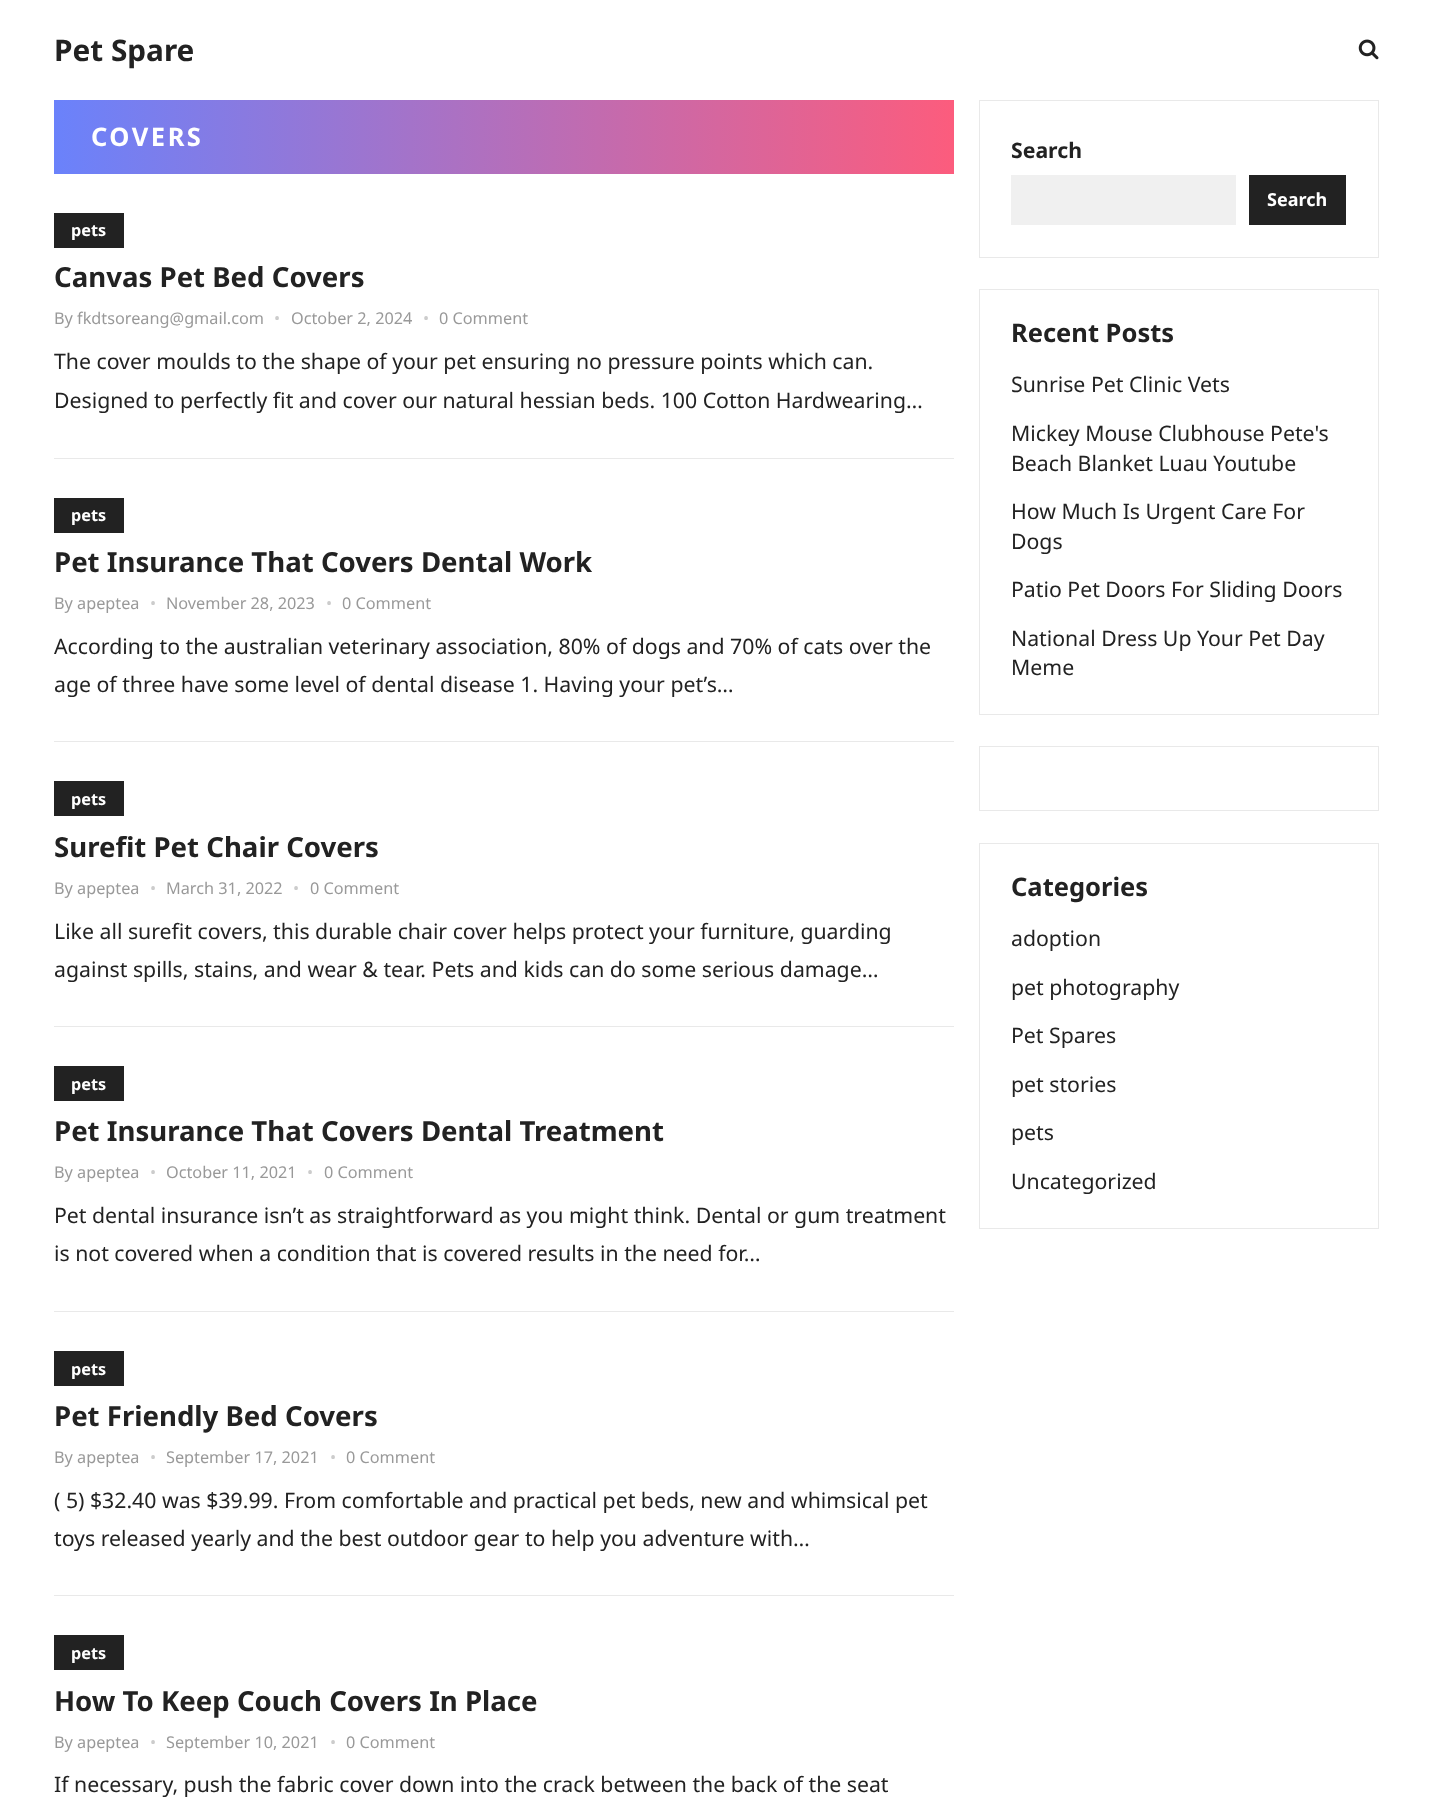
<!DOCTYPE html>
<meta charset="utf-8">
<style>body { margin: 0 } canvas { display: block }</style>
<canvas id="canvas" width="1432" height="1816"></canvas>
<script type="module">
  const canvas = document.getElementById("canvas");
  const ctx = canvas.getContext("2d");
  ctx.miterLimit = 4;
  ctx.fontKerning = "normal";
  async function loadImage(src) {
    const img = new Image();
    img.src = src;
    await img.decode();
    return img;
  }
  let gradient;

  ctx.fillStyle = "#ffffff";
  ctx.fillRect(0, 0, 1432, 1816);
  ctx.font = "bold 29.75px Noto Sans";
  ctx.fillStyle = "#222222";
  ctx.fillText("Pet Spare", 54, 61);
  ctx.drawImage(await loadImage("img1.png"), 1358, 39, 21, 21);
  gradient = ctx.createLinearGradient(54, 137, 954, 137);
  gradient.addColorStop(0, "#6a82fb");
  gradient.addColorStop(1, "#fc5c7d");
  ctx.fillStyle = gradient;
  ctx.fillRect(54, 100, 900, 74);
  ctx.letterSpacing = "2.5px";
  ctx.font = "bold 25.5px Noto Sans";
  ctx.fillStyle = "#ffffff";
  ctx.fillText("COVERS", 91, 146);
  ctx.fillStyle = "#e9e9e9";
  ctx.fillRect(54, 458, 900, 1);
  ctx.fillStyle = "#222222";
  ctx.fillRect(54, 213, 70, 35);
  ctx.letterSpacing = "0px";
  ctx.font = "bold 16.25px Noto Sans";
  ctx.fillStyle = "#ffffff";
  ctx.fillText("pets", 71, 236);
  ctx.font = "bold 27.6px Noto Sans";
  ctx.fillStyle = "#222222";
  ctx.fillText("Canvas Pet Bed Covers", 54, 287);
  ctx.font = "16.25px Noto Sans";
  ctx.fillStyle = "#999999";
  ctx.fillText("By fkdtsoreang@gmail.com", 54, 324);
  ctx.fillStyle = "#cccccc";
  ctx.fillText("•", 274, 324);
  ctx.fillStyle = "#999999";
  ctx.fillText("October 2, 2024", 291, 324);
  ctx.fillStyle = "#cccccc";
  ctx.fillText("•", 423, 324);
  ctx.fillStyle = "#999999";
  ctx.fillText("0 Comment", 439, 324);
  ctx.font = "21.25px Noto Sans";
  ctx.fillStyle = "#222222";
  ctx.fillText("The cover moulds to the shape of your pet ensuring no pressure points which can.", 54, 369);
  ctx.fillText("Designed to perfectly fit and cover our natural hessian beds. 100 Cotton Hardwearing…", 54, 408);
  ctx.fillStyle = "#e9e9e9";
  ctx.fillRect(54, 741, 900, 1);
  ctx.fillStyle = "#222222";
  ctx.fillRect(54, 498, 70, 35);
  ctx.font = "bold 16.25px Noto Sans";
  ctx.fillStyle = "#ffffff";
  ctx.fillText("pets", 71, 521);
  ctx.font = "bold 27.6px Noto Sans";
  ctx.fillStyle = "#222222";
  ctx.fillText("Pet Insurance That Covers Dental Work", 54, 572);
  ctx.font = "16.25px Noto Sans";
  ctx.fillStyle = "#999999";
  ctx.fillText("By apeptea", 54, 609);
  ctx.fillStyle = "#cccccc";
  ctx.fillText("•", 150, 609);
  ctx.fillStyle = "#999999";
  ctx.fillText("November 28, 2023", 166, 609);
  ctx.fillStyle = "#cccccc";
  ctx.fillText("•", 326, 609);
  ctx.fillStyle = "#999999";
  ctx.fillText("0 Comment", 342, 609);
  ctx.font = "21.25px Noto Sans";
  ctx.fillStyle = "#222222";
  ctx.fillText("According to the australian veterinary association, 80% of dogs and 70% of cats over the", 54, 654);
  ctx.fillText("age of three have some level of dental disease 1. Having your pet’s…", 54, 692);
  ctx.fillStyle = "#e9e9e9";
  ctx.fillRect(54, 1026, 900, 1);
  ctx.fillStyle = "#222222";
  ctx.fillRect(54, 781, 70, 35);
  ctx.font = "bold 16.25px Noto Sans";
  ctx.fillStyle = "#ffffff";
  ctx.fillText("pets", 71, 805);
  ctx.font = "bold 27.6px Noto Sans";
  ctx.fillStyle = "#222222";
  ctx.fillText("Surefit Pet Chair Covers", 54, 857);
  ctx.font = "16.25px Noto Sans";
  ctx.fillStyle = "#999999";
  ctx.fillText("By apeptea", 54, 894);
  ctx.fillStyle = "#cccccc";
  ctx.fillText("•", 150, 894);
  ctx.fillStyle = "#999999";
  ctx.fillText("March 31, 2022", 166, 894);
  ctx.fillStyle = "#cccccc";
  ctx.fillText("•", 293, 894);
  ctx.fillStyle = "#999999";
  ctx.fillText("0 Comment", 310, 894);
  ctx.font = "21.25px Noto Sans";
  ctx.fillStyle = "#222222";
  ctx.fillText("Like all surefit covers, this durable chair cover helps protect your furniture, guarding", 54, 939);
  ctx.fillText("against spills, stains, and wear & tear. Pets and kids can do some serious damage…", 54, 977);
  ctx.fillStyle = "#e9e9e9";
  ctx.fillRect(54, 1311, 900, 1);
  ctx.fillStyle = "#222222";
  ctx.fillRect(54, 1066, 70, 35);
  ctx.font = "bold 16.25px Noto Sans";
  ctx.fillStyle = "#ffffff";
  ctx.fillText("pets", 71, 1090);
  ctx.font = "bold 27.6px Noto Sans";
  ctx.fillStyle = "#222222";
  ctx.fillText("Pet Insurance That Covers Dental Treatment", 54, 1141);
  ctx.font = "16.25px Noto Sans";
  ctx.fillStyle = "#999999";
  ctx.fillText("By apeptea", 54, 1178);
  ctx.fillStyle = "#cccccc";
  ctx.fillText("•", 150, 1178);
  ctx.fillStyle = "#999999";
  ctx.fillText("October 11, 2021", 166, 1178);
  ctx.fillStyle = "#cccccc";
  ctx.fillText("•", 307, 1178);
  ctx.fillStyle = "#999999";
  ctx.fillText("0 Comment", 324, 1178);
  ctx.font = "21.25px Noto Sans";
  ctx.fillStyle = "#222222";
  ctx.fillText("Pet dental insurance isn’t as straightforward as you might think. Dental or gum treatment", 54, 1223);
  ctx.fillText("is not covered when a condition that is covered results in the need for…", 54, 1261);
  ctx.fillStyle = "#e9e9e9";
  ctx.fillRect(54, 1595, 900, 1);
  ctx.fillStyle = "#222222";
  ctx.fillRect(54, 1351, 70, 35);
  ctx.font = "bold 16.25px Noto Sans";
  ctx.fillStyle = "#ffffff";
  ctx.fillText("pets", 71, 1375);
  ctx.font = "bold 27.6px Noto Sans";
  ctx.fillStyle = "#222222";
  ctx.fillText("Pet Friendly Bed Covers", 54, 1426);
  ctx.font = "16.25px Noto Sans";
  ctx.fillStyle = "#999999";
  ctx.fillText("By apeptea", 54, 1463);
  ctx.fillStyle = "#cccccc";
  ctx.fillText("•", 150, 1463);
  ctx.fillStyle = "#999999";
  ctx.fillText("September 17, 2021", 166, 1463);
  ctx.fillStyle = "#cccccc";
  ctx.fillText("•", 330, 1463);
  ctx.fillStyle = "#999999";
  ctx.fillText("0 Comment", 346, 1463);
  ctx.font = "21.25px Noto Sans";
  ctx.fillStyle = "#222222";
  ctx.fillText("( 5) $32.40 was $39.99. From comfortable and practical pet beds, new and whimsical pet", 54, 1508);
  ctx.fillText("toys released yearly and the best outdoor gear to help you adventure with…", 54, 1546);
  ctx.fillRect(54, 1635, 70, 35);
  ctx.font = "bold 16.25px Noto Sans";
  ctx.fillStyle = "#ffffff";
  ctx.fillText("pets", 71, 1659);
  ctx.font = "bold 27.6px Noto Sans";
  ctx.fillStyle = "#222222";
  ctx.fillText("How To Keep Couch Covers In Place", 54, 1711);
  ctx.font = "16.25px Noto Sans";
  ctx.fillStyle = "#999999";
  ctx.fillText("By apeptea", 54, 1748);
  ctx.fillStyle = "#cccccc";
  ctx.fillText("•", 150, 1748);
  ctx.fillStyle = "#999999";
  ctx.fillText("September 10, 2021", 166, 1748);
  ctx.fillStyle = "#cccccc";
  ctx.fillText("•", 330, 1748);
  ctx.fillStyle = "#999999";
  ctx.fillText("0 Comment", 346, 1748);
  ctx.font = "21.25px Noto Sans";
  ctx.fillStyle = "#222222";
  ctx.fillText("If necessary, push the fabric cover down into the crack between the back of the seat", 54, 1792);
  ctx.strokeStyle = "#e9e9e9";
  ctx.strokeRect(979.5, 100.5, 399, 157);
  ctx.font = "bold 21.25px Noto Sans";
  ctx.fillText("Search", 1011, 158);
  ctx.fillStyle = "#f0f0f0";
  ctx.fillRect(1011, 175, 225, 50);
  ctx.fillStyle = "#222222";
  ctx.fillRect(1249, 175, 97, 50);
  ctx.font = "bold 18px Noto Sans";
  ctx.fillStyle = "#ffffff";
  ctx.fillText("Search", 1267, 206);
  ctx.strokeRect(979.5, 289.5, 399, 425);
  ctx.font = "bold 25.5px Noto Sans";
  ctx.fillStyle = "#222222";
  ctx.fillText("Recent Posts", 1011, 342);
  ctx.font = "21.25px Noto Sans";
  ctx.fillText("Sunrise Pet Clinic Vets", 1011, 392);
  ctx.fillText("Mickey Mouse Clubhouse Pete's", 1011, 441);
  ctx.fillText("Beach Blanket Luau Youtube", 1011, 471);
  ctx.fillText("How Much Is Urgent Care For", 1011, 519);
  ctx.fillText("Dogs", 1011, 549);
  ctx.fillText("Patio Pet Doors For Sliding Doors", 1011, 597);
  ctx.fillText("National Dress Up Your Pet Day", 1011, 646);
  ctx.fillText("Meme", 1011, 675);
  ctx.strokeRect(979.5, 746.5, 399, 64);
  ctx.strokeRect(979.5, 843.5, 399, 385);
  ctx.font = "bold 25.5px Noto Sans";
  ctx.fillText("Categories", 1011, 896);
  ctx.font = "21.25px Noto Sans";
  ctx.fillText("adoption", 1011, 946);
  ctx.fillText("pet photography", 1011, 995);
  ctx.fillText("Pet Spares", 1011, 1043);
  ctx.fillText("pet stories", 1011, 1092);
  ctx.fillText("pets", 1011, 1140);
  ctx.fillText("Uncategorized", 1011, 1189);
</script>
